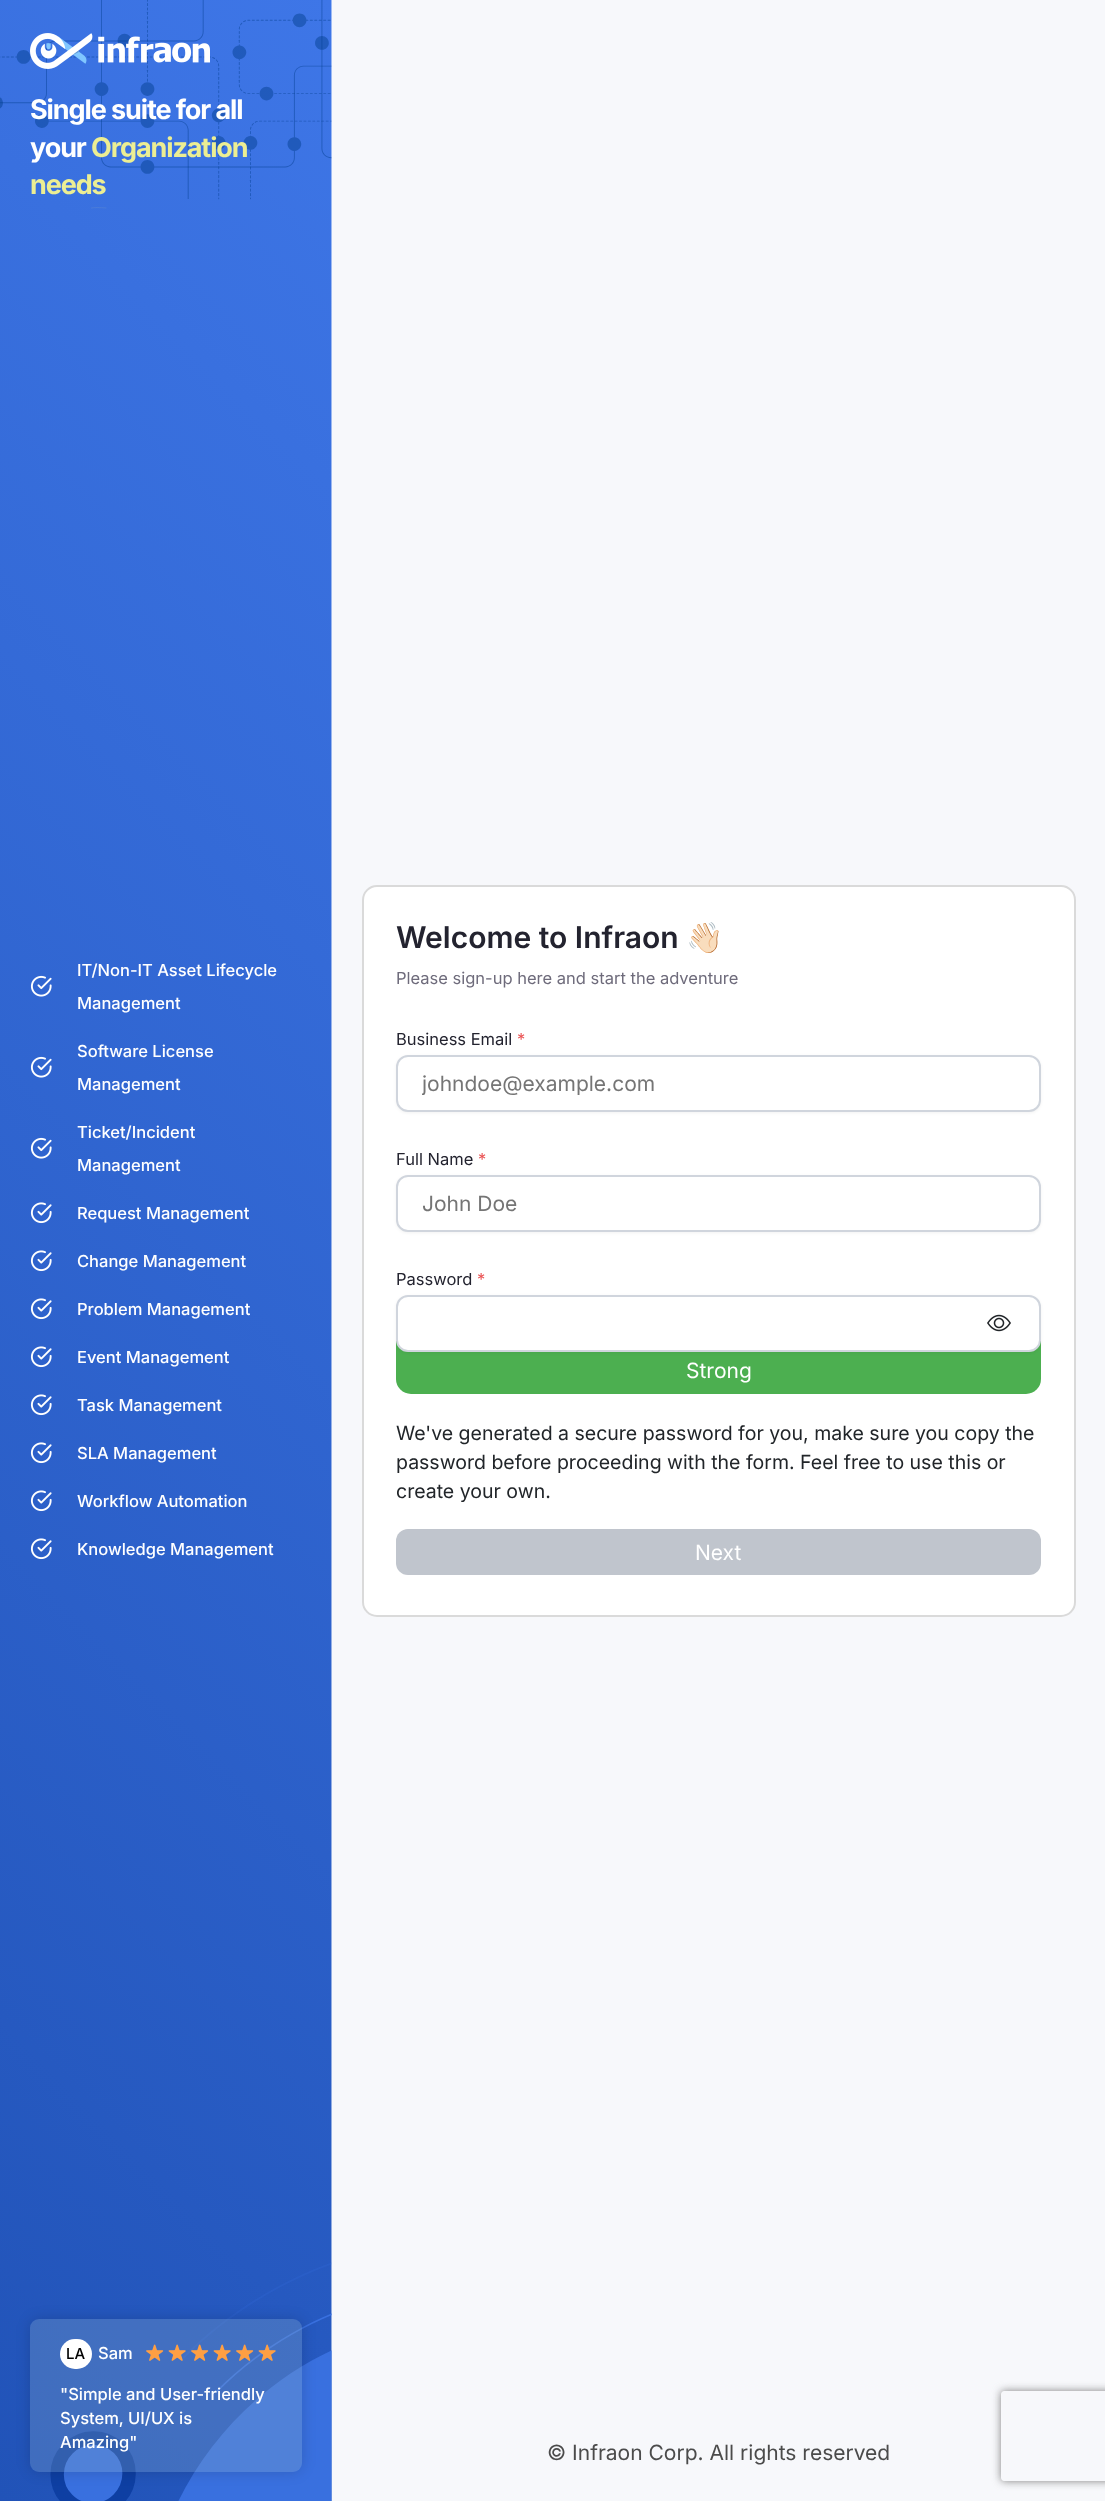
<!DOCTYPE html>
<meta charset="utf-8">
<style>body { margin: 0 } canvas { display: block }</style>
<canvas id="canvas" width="1105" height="2501"></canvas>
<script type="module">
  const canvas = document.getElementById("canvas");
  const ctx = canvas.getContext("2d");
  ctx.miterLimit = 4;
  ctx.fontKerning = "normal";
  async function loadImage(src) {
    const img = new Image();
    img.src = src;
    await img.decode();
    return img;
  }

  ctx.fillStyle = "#ffffff";
  ctx.fillRect(0, 0, 1105, 2501);
  ctx.drawImage(await loadImage("img1.png"), 0, 0, 332, 2501);
  ctx.drawImage(await loadImage("img2.png"), 30, 33, 180, 36);
  ctx.letterSpacing = "-1.1px";
  ctx.font = "bold 27px Inter";
  ctx.fillText("Single suite for all", 30, 119);
  ctx.fillStyle = "#ecee93";
  ctx.fillText("Organization", 91, 157);
  ctx.fillText("needs", 30, 194);
  ctx.beginPath();
  ctx.moveTo(91.5, 208);
  ctx.bezierCurveTo(94, 207.5, 100, 207.5, 106, 208);
  ctx.strokeStyle = "#ecee93";
  ctx.lineWidth = 0.1;
  ctx.lineCap = "round";
  ctx.stroke();
  ctx.fillStyle = "#ffffff";
  ctx.fillText("your", 30, 157);
  ctx.drawImage(await loadImage("img3.png"), 30, 975, 22, 22);
  ctx.letterSpacing = "0px";
  ctx.font = "500 16.5px Inter";
  ctx.fillText("IT/Non-IT Asset Lifecycle", 77, 976);
  ctx.fillText("Management", 77, 1009);
  ctx.drawImage(await loadImage("img4.png"), 30, 1056, 22, 22);
  ctx.fillText("Software License", 77, 1057);
  ctx.fillText("Management", 77, 1090);
  ctx.drawImage(await loadImage("img5.png"), 30, 1137, 22, 22);
  ctx.fillText("Ticket/Incident", 77, 1138);
  ctx.fillText("Management", 77, 1171);
  ctx.drawImage(await loadImage("img6.png"), 30, 1202, 22, 22);
  ctx.fillText("Request Management", 77, 1219);
  ctx.drawImage(await loadImage("img7.png"), 30, 1250, 22, 22);
  ctx.fillText("Change Management", 77, 1267);
  ctx.drawImage(await loadImage("img8.png"), 30, 1298, 22, 22);
  ctx.fillText("Problem Management", 77, 1315);
  ctx.drawImage(await loadImage("img9.png"), 30, 1346, 22, 22);
  ctx.fillText("Event Management", 77, 1363);
  ctx.drawImage(await loadImage("img10.png"), 30, 1394, 22, 22);
  ctx.fillText("Task Management", 77, 1411);
  ctx.drawImage(await loadImage("img11.png"), 30, 1442, 22, 22);
  ctx.fillText("SLA Management", 77, 1459);
  ctx.drawImage(await loadImage("img12.png"), 30, 1490, 22, 22);
  ctx.fillText("Workflow Automation", 77, 1507);
  ctx.drawImage(await loadImage("img13.png"), 30, 1538, 22, 22);
  ctx.fillText("Knowledge Management", 77, 1555);
  ctx.save();
  ctx.beginPath();
  ctx.moveTo(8, 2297);
  ctx.lineTo(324, 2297);
  ctx.lineTo(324, 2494);
  ctx.lineTo(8, 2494);
  ctx.closePath();
  ctx.moveTo(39, 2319);
  ctx.lineTo(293, 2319);
  ctx.bezierCurveTo(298, 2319, 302, 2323, 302, 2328);
  ctx.lineTo(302, 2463);
  ctx.bezierCurveTo(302, 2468, 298, 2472, 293, 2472);
  ctx.lineTo(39, 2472);
  ctx.bezierCurveTo(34, 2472, 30, 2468, 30, 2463);
  ctx.lineTo(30, 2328);
  ctx.bezierCurveTo(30, 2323, 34, 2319, 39, 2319);
  ctx.closePath();
  ctx.clip("evenodd");
  ctx.fillStyle = "rgba(0, 0, 0, 0.15)";
  ctx.filter = "blur(7px)";
  ctx.beginPath();
  ctx.roundRect(30, 2319, 272, 153, 9);
  ctx.fill();
  ctx.filter = "none";
  ctx.restore();
  ctx.fillStyle = "rgba(136, 170, 201, 0.3)";
  ctx.beginPath();
  ctx.roundRect(30, 2319, 272, 153, 9);
  ctx.fill();
  ctx.fillStyle = "#ffffff";
  ctx.beginPath();
  ctx.roundRect(60, 2339, 32, 30, 15);
  ctx.fill();
  ctx.font = "500 15px Inter";
  ctx.fillStyle = "#000000";
  ctx.fillText("LA", 66, 2359);
  ctx.font = "500 16.5px Inter";
  ctx.fillStyle = "#ffffff";
  ctx.fillText("Sam", 98, 2359);
  ctx.drawImage(await loadImage("img14.png"), 146, 2344, 18, 17);
  ctx.drawImage(await loadImage("img15.png"), 168, 2344, 18, 17);
  ctx.drawImage(await loadImage("img16.png"), 191, 2344, 18, 17);
  ctx.drawImage(await loadImage("img17.png"), 213, 2344, 18, 17);
  ctx.drawImage(await loadImage("img18.png"), 236, 2344, 18, 17);
  ctx.drawImage(await loadImage("img19.png"), 258, 2344, 18, 17);
  ctx.fillText("\"Simple and User-friendly", 60, 2400);
  ctx.fillText("System, UI/UX is", 60, 2424);
  ctx.fillText("Amazing\"", 60, 2448);
  ctx.fillStyle = "#f7f8fb";
  ctx.fillRect(332, 0, 773, 2501);
  ctx.fillStyle = "#ffffff";
  ctx.beginPath();
  ctx.roundRect(363, 886, 712, 730, 14);
  ctx.fill();
  ctx.strokeStyle = "#dadada";
  ctx.lineWidth = 2;
  ctx.stroke();
  ctx.font = "600 30px Inter";
  ctx.fillStyle = "#23232f";
  ctx.fillText("Welcome to Infraon", 396, 948);
  ctx.font = "bold 30px Noto Color Emoji";
  ctx.fillText("👋🏻", 686, 948);
  ctx.font = "16.5px Inter";
  ctx.fillStyle = "#6e6b7b";
  ctx.fillText("Please sign-up here and start the adventure", 396, 984);
  ctx.fillStyle = "#23232f";
  ctx.fillText("Business Email", 396, 1045);
  ctx.fillStyle = "#ea5455";
  ctx.fillText("*", 517, 1045);
  ctx.fillStyle = "rgba(0, 0, 0, 0.05)";
  ctx.filter = "blur(1.5px)";
  ctx.beginPath();
  ctx.roundRect(396, 1056, 645, 57, 12);
  ctx.fill();
  ctx.filter = "none";
  ctx.fillStyle = "#ffffff";
  ctx.beginPath();
  ctx.roundRect(397, 1056, 643, 55, 11);
  ctx.fill();
  ctx.strokeStyle = "#d0d5dd";
  ctx.stroke();
  ctx.save();
  ctx.beginPath();
  ctx.rect(422, 1070, 594, 25);
  ctx.clip();
  ctx.font = "21px Inter";
  ctx.fillStyle = "#757575";
  ctx.fillText("johndoe@example.com", 422, 1091);
  ctx.restore();
  ctx.fillStyle = "#23232f";
  ctx.fillText("Full Name", 396, 1165);
  ctx.fillStyle = "#ea5455";
  ctx.fillText("*", 478, 1165);
  ctx.fillStyle = "rgba(0, 0, 0, 0.05)";
  ctx.filter = "blur(1.5px)";
  ctx.beginPath();
  ctx.roundRect(396, 1176, 645, 57, 12);
  ctx.fill();
  ctx.filter = "none";
  ctx.fillStyle = "#ffffff";
  ctx.beginPath();
  ctx.roundRect(397, 1176, 643, 55, 11);
  ctx.fill();
  ctx.stroke();
  ctx.font = "21px Inter";
  ctx.fillStyle = "#757575";
  ctx.fillText("John Doe", 422, 1211);
  ctx.font = "16.5px Inter";
  ctx.fillStyle = "#23232f";
  ctx.fillText("Password", 396, 1285);
  ctx.fillStyle = "#ea5455";
  ctx.fillText("*", 477, 1285);
  ctx.fillStyle = "#4caf50";
  ctx.beginPath();
  ctx.roundRect(396, 1341, 645, 53, [0, 0, 15, 15]);
  ctx.fill();
  ctx.fillStyle = "rgba(0, 0, 0, 0.05)";
  ctx.filter = "blur(1.5px)";
  ctx.beginPath();
  ctx.roundRect(396, 1296, 645, 57, 12);
  ctx.fill();
  ctx.filter = "none";
  ctx.fillStyle = "#ffffff";
  ctx.beginPath();
  ctx.roundRect(397, 1296, 643, 55, 11);
  ctx.fill();
  ctx.stroke();
  ctx.drawImage(await loadImage("img20.png"), 987, 1314, 24, 18);
  ctx.font = "21px Inter";
  ctx.fillText("Strong", 686, 1378);
  ctx.font = "19.5px Inter";
  ctx.fillStyle = "#212529";
  ctx.fillText("We've generated a secure password for you, make sure you copy the", 396, 1440);
  ctx.fillText("password before proceeding with the form. Feel free to use this or", 396, 1469);
  ctx.fillText("create your own.", 396, 1498);
  ctx.fillStyle = "#c0c5cd";
  ctx.beginPath();
  ctx.roundRect(396, 1529, 645, 46, 12);
  ctx.fill();
  ctx.font = "21px Inter";
  ctx.fillStyle = "#ffffff";
  ctx.fillText("Next", 695, 1560);
  ctx.save();
  ctx.beginPath();
  ctx.moveTo(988, 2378);
  ctx.lineTo(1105, 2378);
  ctx.lineTo(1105, 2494);
  ctx.lineTo(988, 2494);
  ctx.closePath();
  ctx.moveTo(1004, 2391);
  ctx.lineTo(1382, 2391);
  ctx.bezierCurveTo(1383.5, 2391, 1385, 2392.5, 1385, 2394);
  ctx.lineTo(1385, 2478);
  ctx.bezierCurveTo(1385, 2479.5, 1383.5, 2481, 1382, 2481);
  ctx.lineTo(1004, 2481);
  ctx.bezierCurveTo(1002.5, 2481, 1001, 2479.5, 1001, 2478);
  ctx.lineTo(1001, 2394);
  ctx.bezierCurveTo(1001, 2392.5, 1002.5, 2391, 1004, 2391);
  ctx.closePath();
  ctx.clip("evenodd");
  ctx.fillStyle = "#808080";
  ctx.filter = "blur(4px)";
  ctx.beginPath();
  ctx.roundRect(1001, 2391, 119, 90, 3);
  ctx.fill();
  ctx.filter = "none";
  ctx.restore();
  ctx.fillStyle = "#4b4b4b";
  ctx.fillText("© Infraon Corp. All rights reserved", 547, 2460);
</script>
